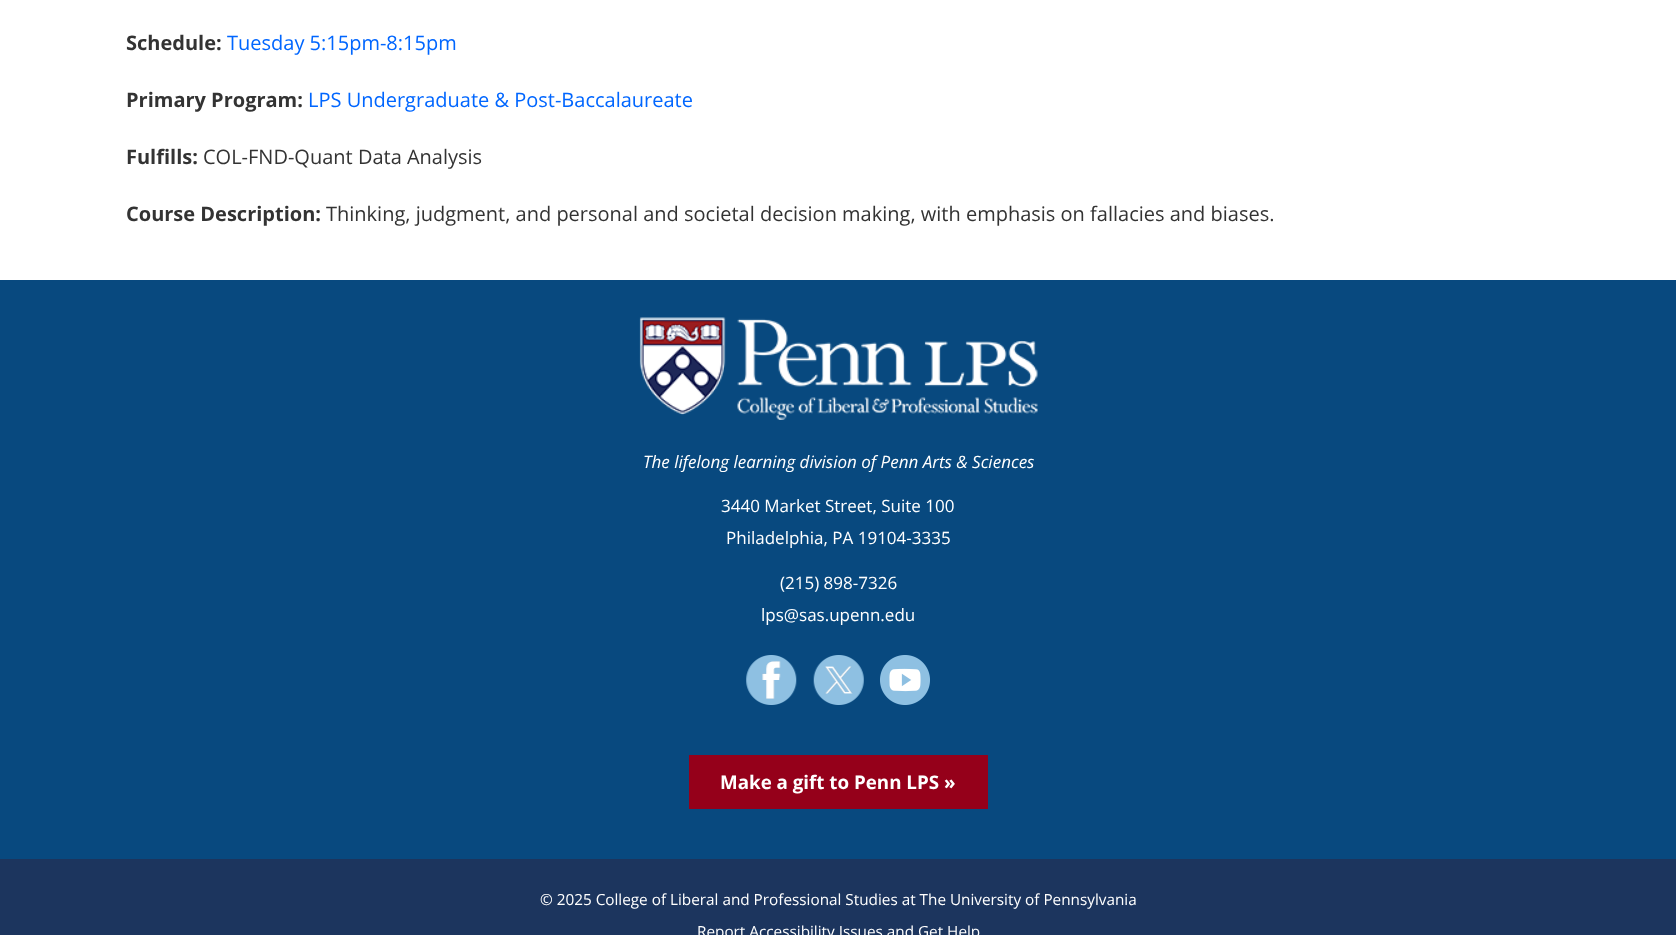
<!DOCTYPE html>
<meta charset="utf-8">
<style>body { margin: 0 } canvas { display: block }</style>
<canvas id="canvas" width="1676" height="935"></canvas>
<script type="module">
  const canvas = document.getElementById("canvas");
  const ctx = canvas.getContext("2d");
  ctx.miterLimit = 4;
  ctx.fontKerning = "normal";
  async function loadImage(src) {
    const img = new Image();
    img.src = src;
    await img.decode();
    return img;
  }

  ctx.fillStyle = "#ffffff";
  ctx.fillRect(0, 0, 1676, 935);
  ctx.font = "bold 20px Open Sans";
  ctx.fillStyle = "#333333";
  ctx.fillText("Schedule:", 126, 50);
  ctx.font = "20px Open Sans";
  ctx.fillStyle = "#0066ff";
  ctx.fillText("Tuesday 5:15pm-8:15pm", 227, 50);
  ctx.font = "bold 20px Open Sans";
  ctx.fillStyle = "#333333";
  ctx.fillText("Primary Program:", 126, 107);
  ctx.font = "20px Open Sans";
  ctx.fillStyle = "#0066ff";
  ctx.fillText("LPS Undergraduate & Post-Baccalaureate", 308, 107);
  ctx.font = "bold 20px Open Sans";
  ctx.fillStyle = "#333333";
  ctx.fillText("Fulfills:", 126, 164);
  ctx.font = "20px Open Sans";
  ctx.fillText("COL-FND-Quant Data Analysis", 203, 164);
  ctx.font = "bold 20px Open Sans";
  ctx.fillText("Course Description:", 126, 221);
  ctx.font = "20px Open Sans";
  ctx.fillText("Thinking, judgment, and personal and societal decision making, with emphasis on fallacies and biases.", 326, 221);
  ctx.fillStyle = "#08497f";
  ctx.fillRect(0, 280, 1676, 579);
  ctx.drawImage(await loadImage("img1.png"), 639, 317, 399, 103);
  ctx.font = "italic 17px Open Sans";
  ctx.fillStyle = "#ffffff";
  ctx.fillText("The lifelong learning division of Penn Arts & Sciences", 643, 468);
  ctx.font = "17px Open Sans";
  ctx.fillText("3440 Market Street, Suite 100", 721, 512);
  ctx.fillText("Philadelphia, PA 19104-3335", 726, 544);
  ctx.fillText("(215) 898-7326", 780, 589);
  ctx.fillText("lps@sas.upenn.edu", 761, 621);
  ctx.drawImage(await loadImage("img2.png"), 746, 655, 51, 50);
  ctx.drawImage(await loadImage("img3.png"), 813, 655, 51, 50);
  ctx.drawImage(await loadImage("img4.png"), 880, 655, 50, 50);
  ctx.fillStyle = "#95001a";
  ctx.fillRect(689, 755, 299, 54);
  ctx.font = "bold 18.75px Open Sans";
  ctx.fillStyle = "#ffffff";
  ctx.fillText("Make a gift to Penn LPS »", 720, 789);
  ctx.fillStyle = "#1c355e";
  ctx.fillRect(0, 859, 1676, 76);
  ctx.font = "15.3px Open Sans";
  ctx.fillStyle = "#ffffff";
  ctx.fillText("© 2025 College of Liberal and Professional Studies at The University of Pennsylvania", 540, 905);
  ctx.fillText("Report Accessibility Issues and Get Help", 697, 937);
</script>
